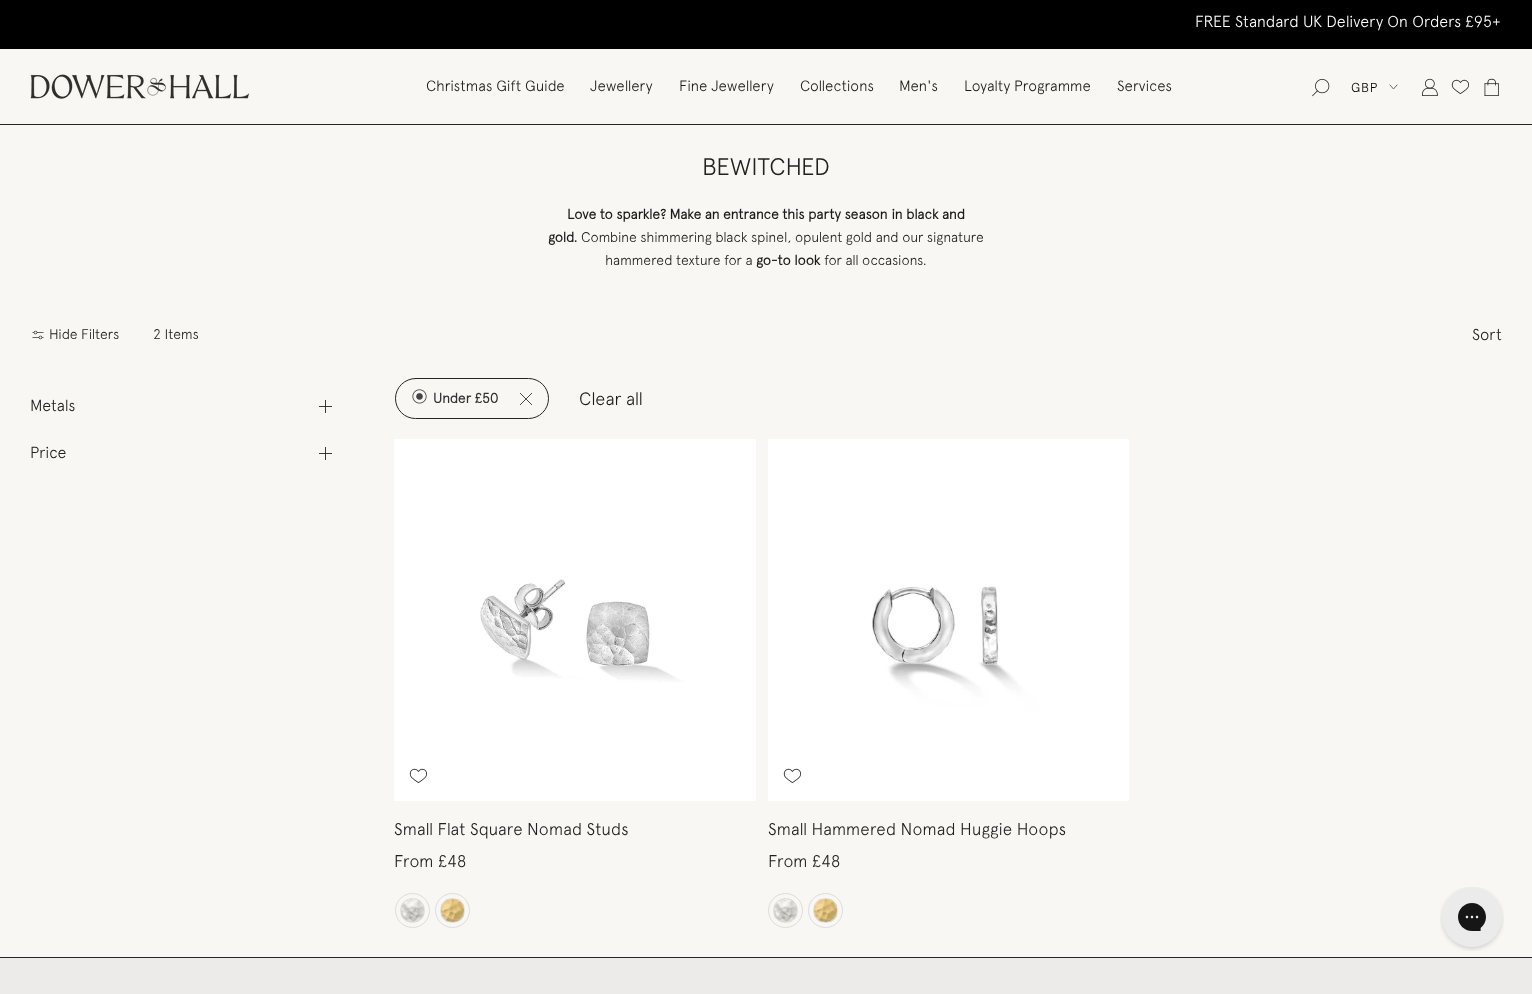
<!DOCTYPE html>
<meta charset="utf-8">
<style>body { margin: 0 } canvas { display: block }</style>
<canvas id="canvas" width="1532" height="994"></canvas>
<script type="module">
  const canvas = document.getElementById("canvas");
  const ctx = canvas.getContext("2d");
  ctx.miterLimit = 4;
  ctx.fontKerning = "normal";
  async function loadImage(src) {
    const img = new Image();
    img.src = src;
    await img.decode();
    return img;
  }

  ctx.fillStyle = "#f8f7f3";
  ctx.fillRect(0, 0, 1532, 994);
  ctx.fillStyle = "#393b3b";
  ctx.fillRect(319, 453, 13, 1);
  ctx.fillRect(319, 406, 13, 1);
  ctx.fillStyle = "#000000";
  ctx.fillRect(0, 0, 1532, 49);
  ctx.letterSpacing = "0.05px";
  ctx.font = "300 16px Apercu";
  ctx.fillStyle = "#ffffff";
  ctx.fillText("FREE Standard UK Delivery On Orders £95+", 1195, 27);
  ctx.fillStyle = "#242626";
  ctx.fillRect(0, 124, 1532, 1);
  ctx.drawImage(await loadImage("img1.png"), 30, 74, 220, 25);
  ctx.letterSpacing = "0px";
  ctx.font = "300 15px Apercu";
  ctx.fillStyle = "#1c1b1b";
  ctx.fillText("Christmas Gift Guide", 426, 91);
  ctx.fillText("Jewellery", 590, 91);
  ctx.fillText("Fine Jewellery", 679, 91);
  ctx.fillText("Collections", 800, 91);
  ctx.fillText("Men's", 899, 91);
  ctx.fillText("Loyalty Programme", 964, 91);
  ctx.fillText("Services", 1117, 91);
  ctx.drawImage(await loadImage("img2.png"), 1312, 79, 18, 18);
  ctx.letterSpacing = "1px";
  ctx.font = "300 13px Apercu";
  ctx.fillStyle = "#000000";
  ctx.fillText("GBP", 1351, 92);
  ctx.beginPath();
  ctx.moveTo(1397, 85);
  ctx.lineTo(1393.5, 89);
  ctx.lineTo(1390, 85);
  ctx.strokeStyle = "#6a6a6a";
  ctx.lineCap = "square";
  ctx.stroke();
  ctx.drawImage(await loadImage("img3.png"), 1422, 78, 16, 18);
  ctx.drawImage(await loadImage("img4.png"), 1451, 79, 18, 15);
  ctx.drawImage(await loadImage("img5.png"), 1484, 78, 15, 18);
  ctx.letterSpacing = "0px";
  ctx.font = "300 24px Apercu";
  ctx.fillStyle = "#212121";
  ctx.fillText("BEWITCHED", 702, 175);
  ctx.font = "bold 14px Apercu";
  ctx.fillStyle = "#1c1b1b";
  ctx.fillText("Love to sparkle? Make an entrance this party season in black and", 567, 219);
  ctx.fillText("gold.", 548, 242);
  ctx.font = "300 14px Apercu";
  ctx.fillText("Combine shimmering black spinel, opulent gold and our signature", 581, 242);
  ctx.fillText("hammered texture for a", 605, 265);
  ctx.font = "bold 14px Apercu";
  ctx.fillText("go-to look", 756, 265);
  ctx.font = "300 14px Apercu";
  ctx.fillText("for all occasions.", 824, 265);
  ctx.drawImage(await loadImage("img6.png"), 32, 330, 12, 10);
  ctx.fillText("Hide Filters", 49, 339);
  ctx.fillText("2 Items", 153, 339);
  ctx.font = "300 16px Apercu";
  ctx.fillStyle = "#212121";
  ctx.fillText("Sort", 1472, 340);
  ctx.fillText("Metals", 30, 411);
  ctx.fillStyle = "#393b3b";
  ctx.fillRect(325, 400, 1, 13);
  ctx.fillStyle = "#262828";
  ctx.fillRect(325, 406, 1, 1);
  ctx.fillStyle = "#212121";
  ctx.fillText("Price", 30, 458);
  ctx.fillStyle = "#393b3b";
  ctx.fillRect(325, 447, 1, 13);
  ctx.fillStyle = "#262828";
  ctx.fillRect(325, 453, 1, 1);
  ctx.beginPath();
  ctx.roundRect(395.5, 378.5, 153, 40, 20);
  ctx.strokeStyle = "#242626";
  ctx.stroke();
  ctx.drawImage(await loadImage("img7.png"), 412, 389, 15, 15);
  ctx.font = "bold 14px Apercu";
  ctx.fillStyle = "#333333";
  ctx.fillText("Under £50", 433, 403);
  ctx.beginPath();
  ctx.moveTo(532, 393);
  ctx.lineTo(520, 405);
  ctx.moveTo(532, 405);
  ctx.lineTo(520, 393);
  ctx.strokeStyle = "#333333";
  ctx.lineWidth = 0.9;
  ctx.lineCap = "butt";
  ctx.stroke();
  ctx.font = "300 18px Apercu";
  ctx.fillStyle = "#1c1b1b";
  ctx.fillText("Clear all", 579, 405);
  ctx.drawImage(await loadImage("img8.png"), 394, 439, 362, 362);
  ctx.beginPath();
  ctx.arc(412.5, 910.5, 17, 0, Math.PI * 2);
  ctx.strokeStyle = "#dddddd";
  ctx.lineWidth = 1;
  ctx.stroke();
  ctx.drawImage(await loadImage("img9.png"), 401, 899, 23, 23);
  ctx.beginPath();
  ctx.arc(412.5, 910.5, 12, 0, Math.PI * 2);
  ctx.stroke();
  ctx.beginPath();
  ctx.arc(452.5, 910.5, 17, 0, Math.PI * 2);
  ctx.stroke();
  ctx.drawImage(await loadImage("img10.png"), 441, 899, 23, 23);
  ctx.beginPath();
  ctx.arc(452.5, 910.5, 12, 0, Math.PI * 2);
  ctx.stroke();
  ctx.drawImage(await loadImage("img11.png"), 409, 768, 18, 15);
  ctx.letterSpacing = "0.1px";
  ctx.font = "300 17px Apercu";
  ctx.fillStyle = "#212121";
  ctx.fillText("Small Flat Square Nomad Studs", 394, 835);
  ctx.letterSpacing = "0px";
  ctx.fillText("From £48", 394, 867);
  ctx.drawImage(await loadImage("img12.png"), 768, 439, 361, 362);
  ctx.beginPath();
  ctx.arc(785.5, 910.5, 17, 0, Math.PI * 2);
  ctx.stroke();
  ctx.drawImage(await loadImage("img13.png"), 774, 899, 23, 23);
  ctx.beginPath();
  ctx.arc(785.5, 910.5, 12, 0, Math.PI * 2);
  ctx.stroke();
  ctx.beginPath();
  ctx.arc(825.5, 910.5, 17, 0, Math.PI * 2);
  ctx.stroke();
  ctx.drawImage(await loadImage("img14.png"), 814, 899, 23, 23);
  ctx.beginPath();
  ctx.arc(825.5, 910.5, 12, 0, Math.PI * 2);
  ctx.stroke();
  ctx.drawImage(await loadImage("img11.png"), 783, 768, 18, 15);
  ctx.letterSpacing = "0.1px";
  ctx.fillText("Small Hammered Nomad Huggie Hoops", 768, 835);
  ctx.letterSpacing = "0px";
  ctx.fillText("From £48", 768, 867);
  ctx.fillStyle = "#ecebe9";
  ctx.fillRect(0, 958, 1532, 36);
  ctx.fillStyle = "#242626";
  ctx.fillRect(0, 957, 1532, 1);
  ctx.drawImage(await loadImage("img15.png"), 1440, 887, 64, 64);
</script>
